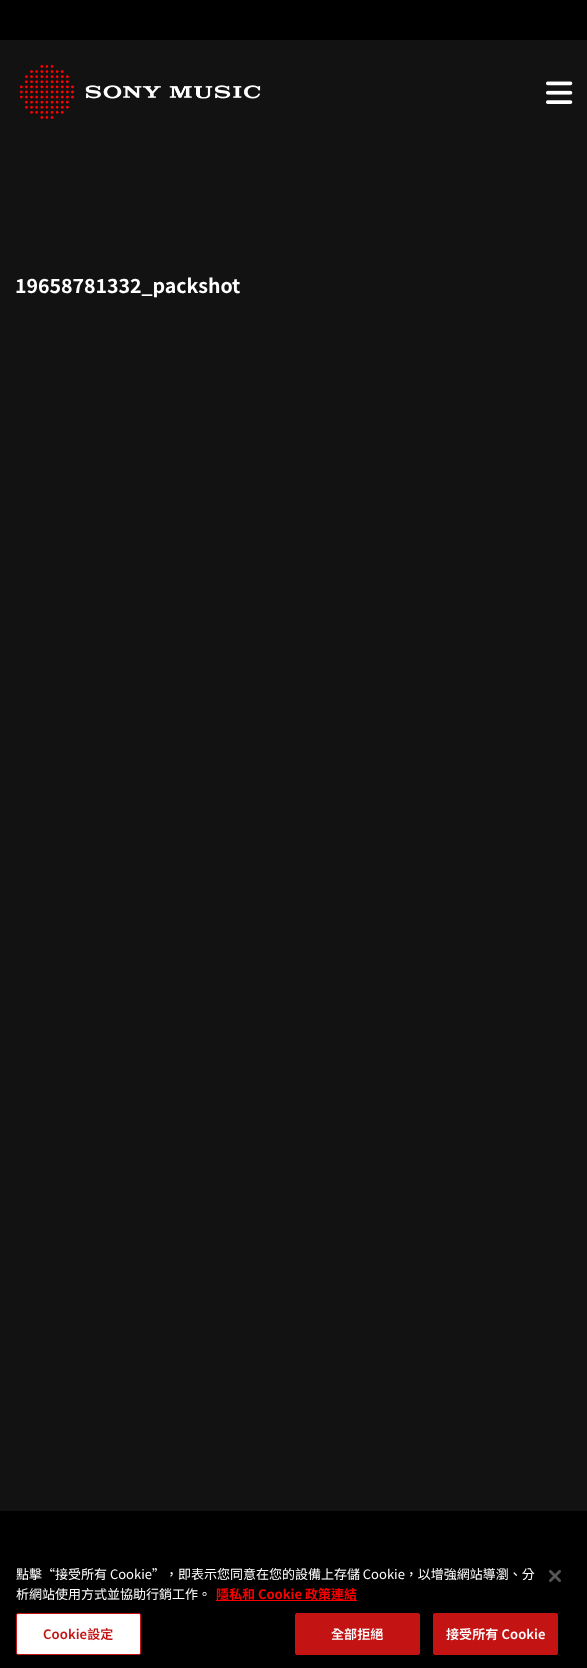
<!DOCTYPE html>
<meta charset="utf-8">
<style>body { margin: 0 } canvas { display: block }</style>
<canvas id="canvas" width="587" height="1668"></canvas>
<script type="module">
  const canvas = document.getElementById("canvas");
  const ctx = canvas.getContext("2d");
  ctx.miterLimit = 4;
  ctx.fontKerning = "normal";
  async function loadImage(src) {
    const img = new Image();
    img.src = src;
    await img.decode();
    return img;
  }

  ctx.fillStyle = "#121212";
  ctx.fillRect(0, 0, 587, 1668);
  ctx.fillStyle = "#000000";
  ctx.fillRect(0, 0, 587, 40);
  ctx.drawImage(await loadImage("img1.png"), 19, 65, 242, 54);
  ctx.drawImage(await loadImage("img2.png"), 546, 81, 27, 23);
  ctx.font = "bold 19.5px Noto Sans TC";
  ctx.fillStyle = "#ffffff";
  ctx.fillText("19658781332_packshot", 15, 293);
  ctx.fillStyle = "#000000";
  ctx.fillRect(0, 1511, 587, 157);
  ctx.font = "13px Noto Sans TC";
  ctx.fillStyle = "#ffffff";
  ctx.fillText("點擊“接受所有 Cookie”，即表示您同意在您的設備上存儲 Cookie，以增強網站導瀏、分", 16, 1579);
  ctx.fillText("析網站使用方式並協助行銷工作。", 16, 1599);
  ctx.fillStyle = "#f90000";
  ctx.fillRect(216, 1600, 141, 1);
  ctx.font = "bold 13px Noto Sans TC";
  ctx.fillText("隱私和 Cookie 政策連結", 216, 1599);
  ctx.fillStyle = "#ffffff";
  ctx.beginPath();
  ctx.roundRect(16.5, 1613.5, 124, 41, 1.5);
  ctx.fill();
  ctx.strokeStyle = "#c31313";
  ctx.stroke();
  ctx.letterSpacing = "0.1px";
  ctx.font = "600 13px Noto Sans TC";
  ctx.fillStyle = "#c31313";
  ctx.fillText("Cookie設定", 43, 1639);
  ctx.beginPath();
  ctx.roundRect(295.5, 1613.5, 124, 41, 1.5);
  ctx.fill();
  ctx.stroke();
  ctx.fillStyle = "#ffffff";
  ctx.fillText("全部拒絕", 331, 1639);
  ctx.fillStyle = "#c31313";
  ctx.beginPath();
  ctx.roundRect(433.5, 1613.5, 124, 41, 1.5);
  ctx.fill();
  ctx.stroke();
  ctx.fillStyle = "#ffffff";
  ctx.fillText("接受所有 Cookie", 446, 1639);
  ctx.drawImage(await loadImage("img3.png"), 549, 1570, 12, 12);
</script>
